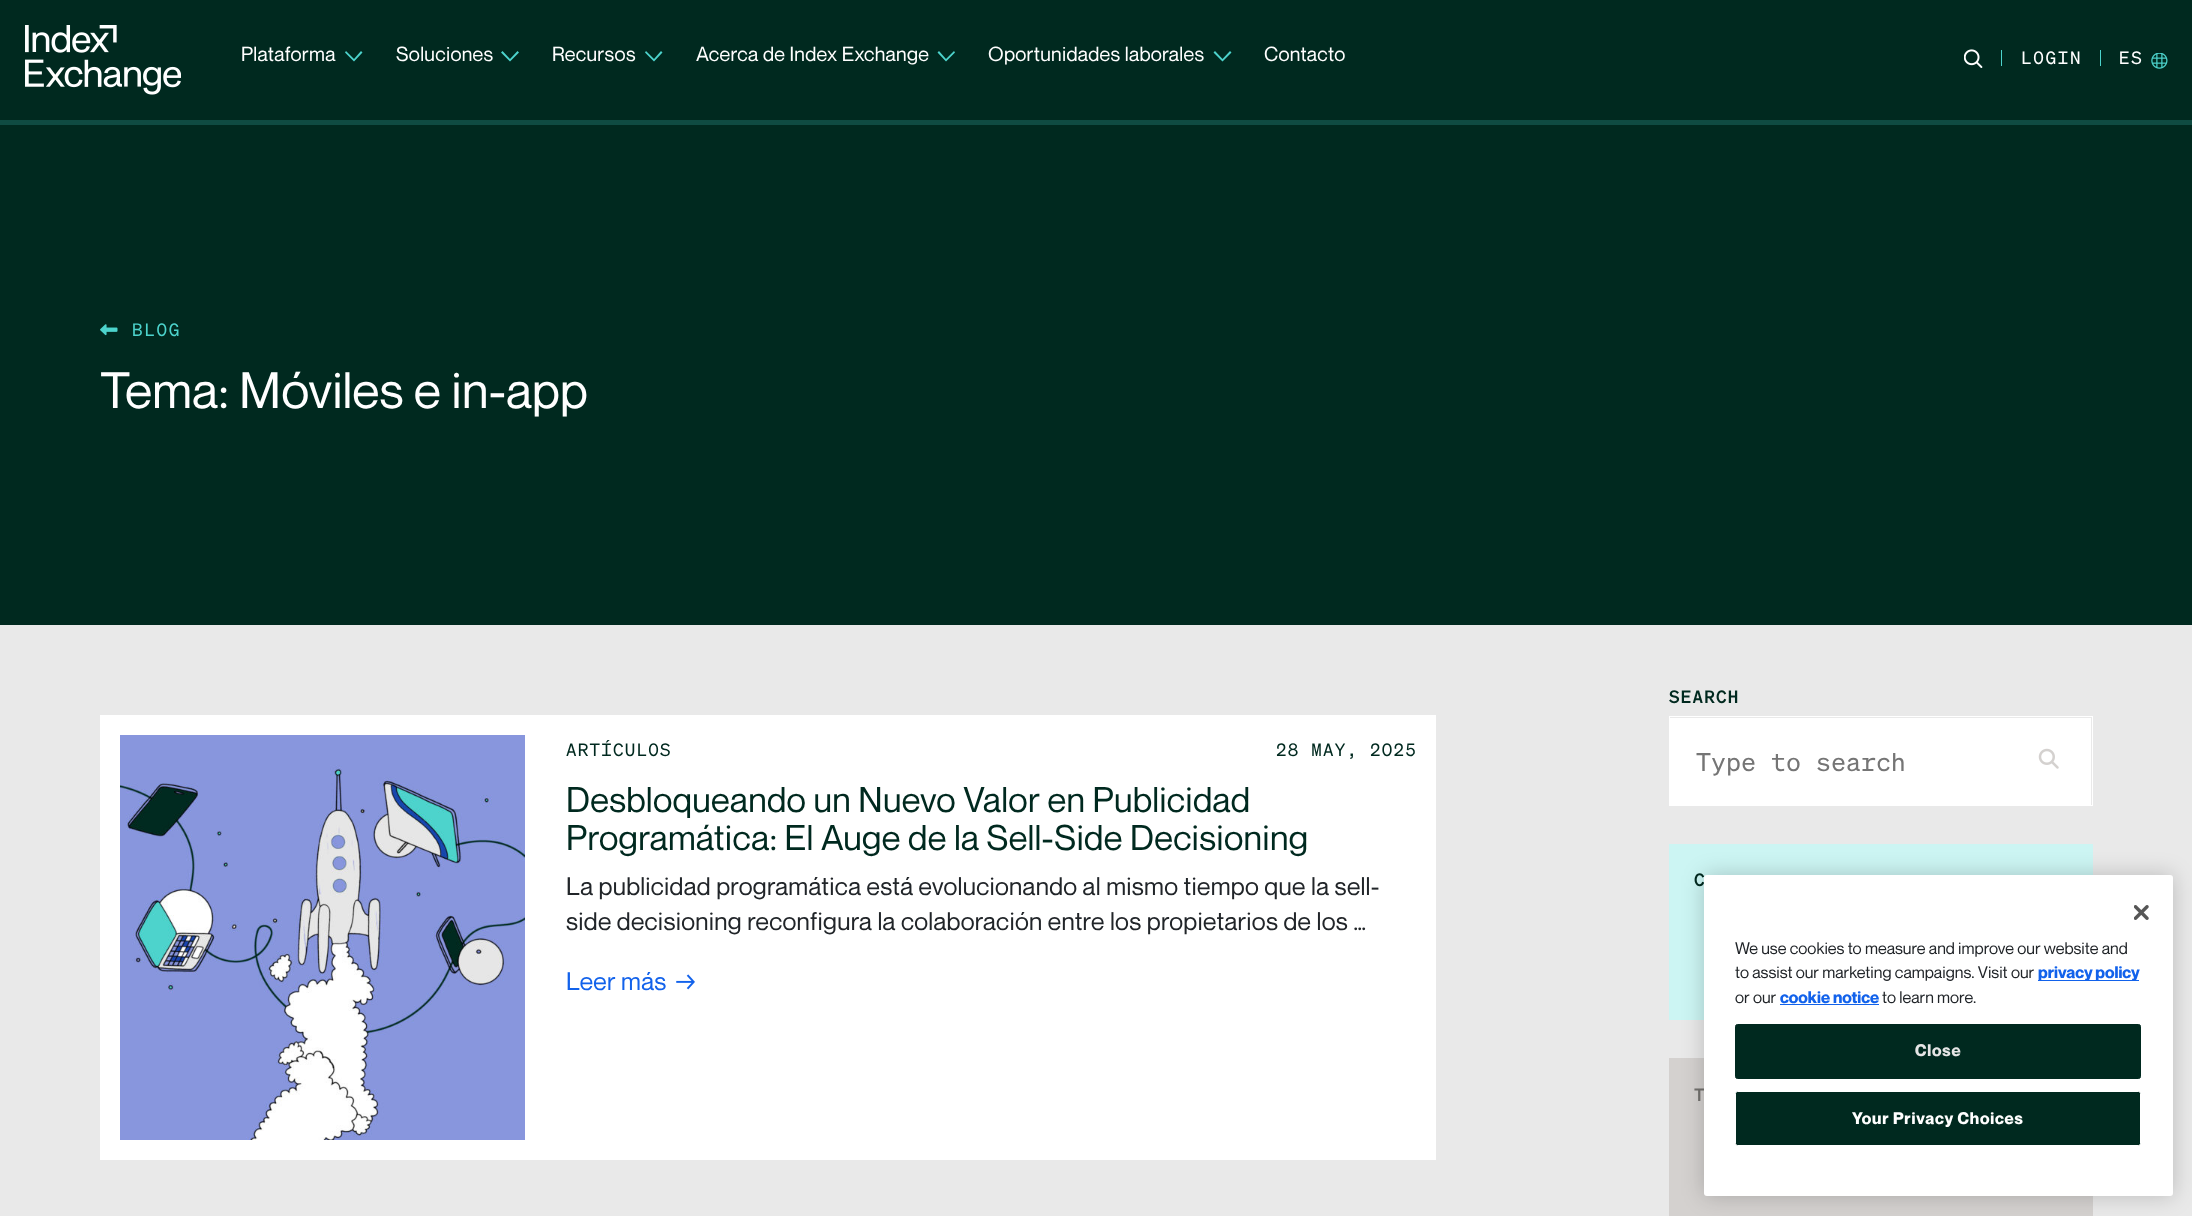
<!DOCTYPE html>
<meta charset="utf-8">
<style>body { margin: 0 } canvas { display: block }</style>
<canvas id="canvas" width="2192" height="1216"></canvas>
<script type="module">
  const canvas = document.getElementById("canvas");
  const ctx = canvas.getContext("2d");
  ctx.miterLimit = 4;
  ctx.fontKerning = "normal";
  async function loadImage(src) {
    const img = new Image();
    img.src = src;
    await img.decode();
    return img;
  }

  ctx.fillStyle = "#e9e9e9";
  ctx.fillRect(0, 0, 2192, 1216);
  ctx.fillStyle = "#00291f";
  ctx.fillRect(0, 0, 2192, 625);
  ctx.fillStyle = "#0f4b42";
  ctx.fillRect(0, 120, 2192, 5);
  ctx.drawImage(await loadImage("img1.png"), 25, 25, 156, 70);
  ctx.letterSpacing = "0.3px";
  ctx.font = "20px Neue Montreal";
  ctx.fillStyle = "#ffffff";
  ctx.fillText("Plataforma", 241, 61);
  ctx.fillStyle = "#4cd3cc";
  ctx.beginPath();
  ctx.moveTo(346, 51);
  ctx.lineTo(345, 52.5);
  ctx.lineTo(354, 61.5);
  ctx.lineTo(362.5, 52.5);
  ctx.lineTo(361, 51);
  ctx.lineTo(354, 59);
  ctx.closePath();
  ctx.fill();
  ctx.fillStyle = "#ffffff";
  ctx.fillText("Soluciones", 396, 61);
  ctx.fillStyle = "#4cd3cc";
  ctx.beginPath();
  ctx.moveTo(502.5, 51);
  ctx.lineTo(501, 52.5);
  ctx.lineTo(510, 61.5);
  ctx.lineTo(519, 52.5);
  ctx.lineTo(517.5, 51);
  ctx.lineTo(510, 59);
  ctx.closePath();
  ctx.fill();
  ctx.fillStyle = "#ffffff";
  ctx.fillText("Recursos", 552, 61);
  ctx.fillStyle = "#4cd3cc";
  ctx.beginPath();
  ctx.moveTo(646, 51);
  ctx.lineTo(645, 52.5);
  ctx.lineTo(654, 61.5);
  ctx.lineTo(662.5, 52.5);
  ctx.lineTo(661, 51);
  ctx.lineTo(654, 59);
  ctx.closePath();
  ctx.fill();
  ctx.fillStyle = "#ffffff";
  ctx.fillText("Acerca de Index Exchange", 696, 61);
  ctx.fillStyle = "#4cd3cc";
  ctx.beginPath();
  ctx.moveTo(939, 51);
  ctx.lineTo(937.5, 52.5);
  ctx.lineTo(946, 61.5);
  ctx.lineTo(955, 52.5);
  ctx.lineTo(954, 51);
  ctx.lineTo(946, 59);
  ctx.closePath();
  ctx.fill();
  ctx.fillStyle = "#ffffff";
  ctx.fillText("Oportunidades laborales", 988, 61);
  ctx.fillStyle = "#4cd3cc";
  ctx.beginPath();
  ctx.moveTo(1215, 51);
  ctx.lineTo(1213.5, 52.5);
  ctx.lineTo(1222.5, 61.5);
  ctx.lineTo(1231.5, 52.5);
  ctx.lineTo(1230, 51);
  ctx.lineTo(1222.5, 59);
  ctx.closePath();
  ctx.fill();
  ctx.fillStyle = "#ffffff";
  ctx.fillText("Contacto", 1264, 61);
  ctx.drawImage(await loadImage("img2.png"), 1964, 49, 19, 19);
  ctx.fillStyle = "#4cd3cc";
  ctx.fillRect(2001, 50, 1, 16);
  ctx.letterSpacing = "1.75px";
  ctx.font = "17.5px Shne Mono";
  ctx.fillStyle = "#ffffff";
  ctx.fillText("LOGIN", 2021, 64);
  ctx.fillStyle = "#4cd3cc";
  ctx.fillRect(2100, 50, 1, 16);
  ctx.fillStyle = "#ffffff";
  ctx.fillText("ES", 2119, 64);
  ctx.drawImage(await loadImage("img3.png"), 2151, 53, 17, 16);
  ctx.drawImage(await loadImage("img4.png"), 100, 324, 18, 12);
  ctx.fillStyle = "#4cd3cc";
  ctx.fillText("BLOG", 132, 336);
  ctx.letterSpacing = "0.3px";
  ctx.font = "50px Neue Montreal";
  ctx.fillStyle = "#ffffff";
  ctx.fillText("Tema: Móviles e in-app", 100, 408);
  ctx.fillRect(100, 715, 1336, 445);
  ctx.drawImage(await loadImage("img5.png"), 120, 735, 405, 405);
  ctx.letterSpacing = "1.25px";
  ctx.font = "17.5px Shne Mono";
  ctx.fillStyle = "#00291f";
  ctx.fillText("ARTÍCULOS", 566, 756);
  ctx.fillText("28 MAY, 2025", 1276, 756);
  ctx.letterSpacing = "0.3px";
  ctx.font = "35px Neue Montreal";
  ctx.fillText("Desbloqueando un Nuevo Valor en Publicidad", 566, 812);
  ctx.fillText("Programática: El Auge de la Sell-Side Decisioning", 566, 850);
  ctx.font = "25px Neue Montreal";
  ctx.fillStyle = "#212529";
  ctx.fillText("La publicidad programática está evolucionando al mismo tiempo que la sell-", 566, 895);
  ctx.fillText("side decisioning reconfigura la colaboración entre los propietarios de los …", 566, 930);
  ctx.fillStyle = "#1262eb";
  ctx.fillText("Leer más", 566, 990);
  ctx.drawImage(await loadImage("img6.png"), 676, 974, 19, 16);
  ctx.letterSpacing = "1.25px";
  ctx.font = "500 17.5px Shne Mono";
  ctx.fillStyle = "#00291f";
  ctx.fillText("SEARCH", 1669, 703);
  ctx.strokeStyle = "#ffffff";
  ctx.strokeRect(1669.5, 716.5, 423, 89);
  ctx.fillStyle = "#ffffff";
  ctx.fillRect(1670, 718, 421, 87);
  ctx.drawImage(await loadImage("img7.png"), 2038, 748, 21, 21);
  ctx.letterSpacing = "0px";
  ctx.font = "25px Shne Mono";
  ctx.fillStyle = "#757575";
  ctx.fillText("Type to search", 1696, 771);
  ctx.fillStyle = "#ccf5f3";
  ctx.fillRect(1669, 844, 424, 176);
  ctx.letterSpacing = "1.25px";
  ctx.font = "500 17.5px Shne Mono";
  ctx.fillStyle = "#00291f";
  ctx.fillText("C", 1694, 886);
  ctx.fillStyle = "#d4d1cf";
  ctx.fillRect(1669, 1058, 424, 158);
  ctx.fillStyle = "#73716e";
  ctx.fillText("T", 1694, 1101);
  ctx.fillStyle = "rgba(0, 0, 0, 0.2)";
  ctx.filter = "blur(11px)";
  ctx.beginPath();
  ctx.roundRect(1704, 875, 469, 321, 3);
  ctx.fill();
  ctx.filter = "none";
  ctx.fillStyle = "#ffffff";
  ctx.beginPath();
  ctx.roundRect(1704, 875, 469, 321, 3);
  ctx.fill();
  ctx.drawImage(await loadImage("img8.png"), 2134, 905, 15, 15);
  ctx.letterSpacing = "0px";
  ctx.font = "16.4px Neue Montreal";
  ctx.fillStyle = "#212529";
  ctx.fillText("We use cookies to measure and improve our website and", 1735, 954);
  ctx.fillText("to assist our marketing campaigns. Visit our", 1735, 978);
  ctx.fillStyle = "#1262eb";
  ctx.fillRect(2038, 980, 101, 1);
  ctx.font = "bold 16.4px Neue Montreal";
  ctx.fillText("privacy policy", 2038, 978);
  ctx.font = "16.4px Neue Montreal";
  ctx.fillStyle = "#212529";
  ctx.fillText("or our", 1735, 1003);
  ctx.font = "bold 16.4px Neue Montreal";
  ctx.fillStyle = "#1262eb";
  ctx.fillText("cookie notice", 1780, 1003);
  ctx.fillRect(1780, 1004, 99, 1);
  ctx.font = "16.4px Neue Montreal";
  ctx.fillStyle = "#212529";
  ctx.fillText("to learn more.", 1882, 1003);
  ctx.fillStyle = "#00291f";
  ctx.beginPath();
  ctx.roundRect(1735.5, 1024.5, 405, 54, 2);
  ctx.fill();
  ctx.strokeStyle = "#00291f";
  ctx.stroke();
  ctx.letterSpacing = "0.8px";
  ctx.font = "bold 16.4px Neue Montreal";
  ctx.fillStyle = "#e6e6e6";
  ctx.fillText("Close", 1915, 1056);
  ctx.fillStyle = "#00291f";
  ctx.beginPath();
  ctx.roundRect(1735.5, 1091.5, 405, 54, 2);
  ctx.fill();
  ctx.strokeStyle = "#ffffff";
  ctx.stroke();
  ctx.fillStyle = "#ffffff";
  ctx.fillText("Your Privacy Choices", 1852, 1124);
</script>
